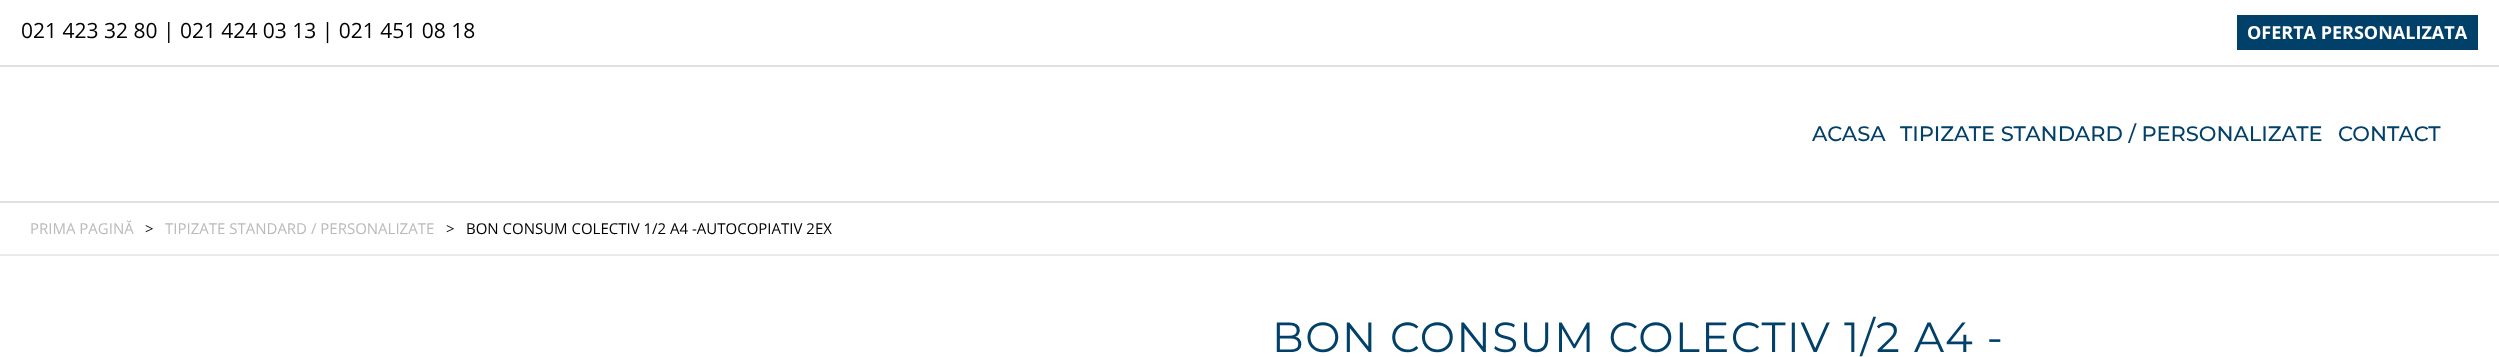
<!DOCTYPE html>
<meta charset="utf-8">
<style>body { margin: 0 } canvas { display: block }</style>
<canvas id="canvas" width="2499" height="357"></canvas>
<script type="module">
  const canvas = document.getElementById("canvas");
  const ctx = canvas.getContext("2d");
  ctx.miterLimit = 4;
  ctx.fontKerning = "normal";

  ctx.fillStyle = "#ffffff";
  ctx.fillRect(0, 0, 2499, 357);
  ctx.fillStyle = "#e1e1e1";
  ctx.fillRect(0, 65, 2499, 2);
  ctx.font = "21px Open Sans";
  ctx.fillStyle = "#000000";
  ctx.fillText("021 423 32 80 | 021 424 03 13 | 021 451 08 18", 21, 38);
  ctx.fillStyle = "#004069";
  ctx.fillRect(2237, 15, 241, 35);
  ctx.font = "bold 18px Open Sans";
  ctx.fillStyle = "#ffffff";
  ctx.fillText("OFERTA PERSONALIZATA", 2247, 39);
  ctx.fillStyle = "#e1e1e1";
  ctx.fillRect(0, 201, 2499, 2);
  ctx.font = "500 21px Montserrat";
  ctx.fillStyle = "#004069";
  ctx.fillText("ACASA", 1812, 141);
  ctx.fillText("TIPIZATE STANDARD / PERSONALIZATE", 1900, 141);
  ctx.fillText("CONTACT", 2338, 141);
  ctx.fillStyle = "#eaeaea";
  ctx.fillRect(0, 254, 2499, 2);
  ctx.font = "15px Open Sans";
  ctx.fillStyle = "#bababa";
  ctx.fillText("PRIMA PAGINĂ", 30, 234);
  ctx.fillStyle = "#000000";
  ctx.fillText(">", 145, 234);
  ctx.fillStyle = "#bababa";
  ctx.fillText("TIPIZATE STANDARD / PERSONALIZATE", 165, 234);
  ctx.fillStyle = "#000000";
  ctx.fillText(">", 446, 234);
  ctx.fillText("BON CONSUM COLECTIV 1/2 A4 -AUTOCOPIATIV 2EX", 466, 234);
  ctx.letterSpacing = "1.5px";
  ctx.font = "42px Montserrat";
  ctx.fillStyle = "#004069";
  ctx.fillText("BON CONSUM COLECTIV 1/2 A4 -", 1272, 352);
</script>
